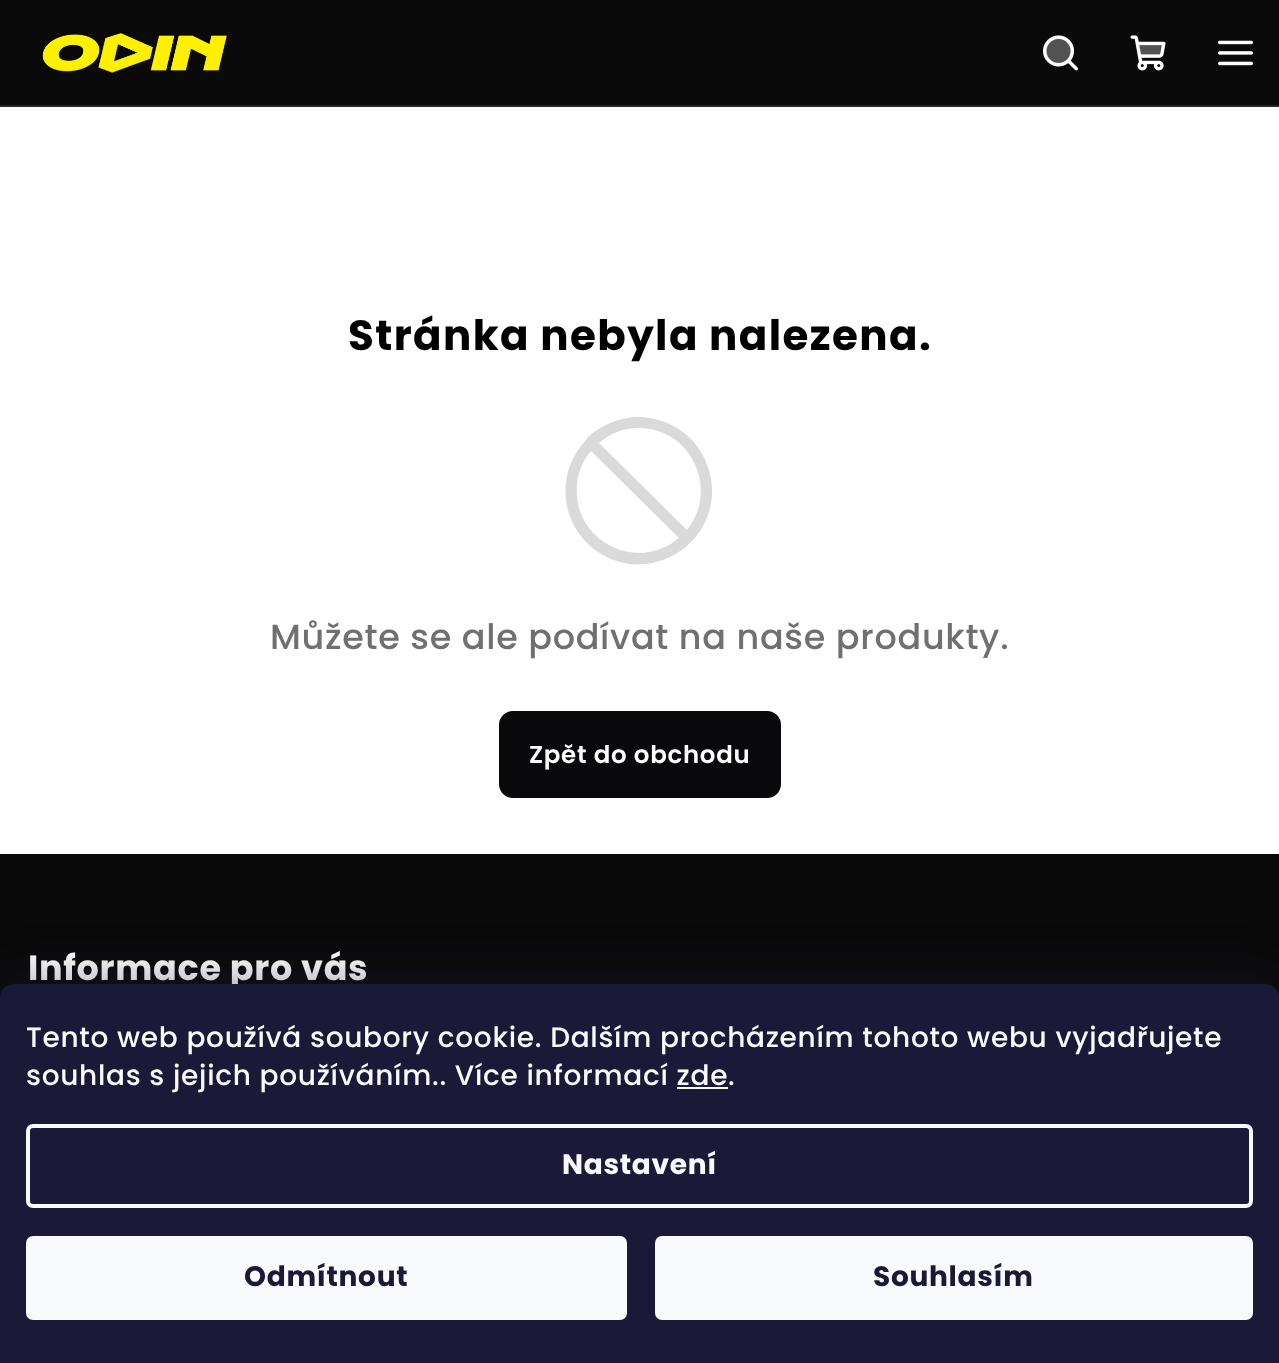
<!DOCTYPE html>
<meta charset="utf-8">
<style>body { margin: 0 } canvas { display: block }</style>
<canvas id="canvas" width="1279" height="1363"></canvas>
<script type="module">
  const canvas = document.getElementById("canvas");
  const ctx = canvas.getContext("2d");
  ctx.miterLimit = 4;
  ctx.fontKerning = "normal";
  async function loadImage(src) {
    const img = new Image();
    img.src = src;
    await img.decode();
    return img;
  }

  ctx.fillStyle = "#ffffff";
  ctx.fillRect(0, 0, 1279, 1363);
  ctx.fillStyle = "#0a0a0a";
  ctx.fillRect(0, 0, 1279, 105);
  ctx.fillStyle = "#262626";
  ctx.fillRect(0, 105, 1279, 2);
  ctx.drawImage(await loadImage("img1.png"), 42, 33, 185, 40);
  ctx.drawImage(await loadImage("img2.png"), 1043, 35, 35, 36);
  ctx.fillStyle = "rgba(255, 255, 255, 0.3)";
  ctx.beginPath();
  ctx.moveTo(1058.5, 65);
  ctx.bezierCurveTo(1076.5, 65, 1076.5, 37, 1058.5, 37);
  ctx.bezierCurveTo(1055.5, 37, 1052.5, 38, 1050.5, 40);
  ctx.bezierCurveTo(1040, 48, 1045.5, 65, 1058.5, 65);
  ctx.closePath();
  ctx.fill();
  ctx.drawImage(await loadImage("img3.png"), 1130, 35, 36, 36);
  ctx.beginPath();
  ctx.moveTo(1139.5, 56);
  ctx.lineTo(1156, 56);
  ctx.bezierCurveTo(1160.5, 56, 1161.5, 56.5, 1162, 52.5);
  ctx.lineTo(1164, 43.5);
  ctx.lineTo(1137, 43.5);
  ctx.closePath();
  ctx.fill();
  ctx.drawImage(await loadImage("img4.png"), 1218, 40, 35, 26);
  ctx.letterSpacing = "1.4px";
  ctx.font = "bold 42px Poppins";
  ctx.fillStyle = "#000000";
  ctx.fillText("Stránka nebyla nalezena.", 348, 350);
  ctx.fillStyle = "#dadada";
  ctx.beginPath();
  ctx.moveTo(639, 417);
  ctx.bezierCurveTo(619, 417, 601, 425, 587, 438);
  ctx.lineTo(587, 439);
  ctx.bezierCurveTo(558, 468, 558, 516, 589, 545);
  ctx.bezierCurveTo(639, 590, 715, 551, 712, 487);
  ctx.bezierCurveTo(711, 470, 704, 454, 693, 441);
  ctx.bezierCurveTo(679, 426, 659, 417, 639, 417);
  ctx.closePath();
  ctx.moveTo(639, 428);
  ctx.bezierCurveTo(691, 428, 720, 490, 687, 530);
  ctx.lineTo(599, 443);
  ctx.bezierCurveTo(610, 433, 624, 428, 639, 428);
  ctx.closePath();
  ctx.moveTo(591, 451);
  ctx.lineTo(679, 538);
  ctx.bezierCurveTo(636, 574, 572, 540, 577, 485);
  ctx.bezierCurveTo(578, 472, 583, 460, 591, 451);
  ctx.closePath();
  ctx.fill();
  ctx.letterSpacing = "0.7px";
  ctx.font = "500 35px Poppins";
  ctx.fillStyle = "#707070";
  ctx.fillText("Můžete se ale podívat na naše produkty.", 270, 649);
  ctx.fillStyle = "#09090b";
  ctx.beginPath();
  ctx.roundRect(500, 712, 280, 85, 13);
  ctx.fill();
  ctx.strokeStyle = "#09090b";
  ctx.lineWidth = 2;
  ctx.stroke();
  ctx.font = "600 24.5px Poppins";
  ctx.fillStyle = "#ffffff";
  ctx.fillText("Zpět do obchodu", 529, 763);
  ctx.fillStyle = "#0a0a0a";
  ctx.fillRect(0, 854, 1279, 144);
  ctx.font = "bold 35px Poppins";
  ctx.fillStyle = "#ffffff";
  ctx.fillText("Informace pro vás", 28, 980);
  ctx.fillStyle = "rgba(27, 25, 57, 0.5)";
  ctx.filter = "blur(26px)";
  ctx.beginPath();
  ctx.roundRect(0, 984, 1279, 379, 14);
  ctx.fill();
  ctx.filter = "none";
  ctx.fillStyle = "#1a1937";
  ctx.beginPath();
  ctx.roundRect(0, 984, 1279, 379, [14, 14, 0, 0]);
  ctx.fill();
  ctx.font = "500 28px Poppins";
  ctx.fillStyle = "#f8fafb";
  ctx.fillText("Tento web používá soubory cookie. Dalším procházením tohoto webu vyjadřujete", 26, 1047);
  ctx.fillText("souhlas s jejich používáním.. Více informací zde.", 26, 1085);
  ctx.fillRect(677, 1087, 51, 2);
  ctx.beginPath();
  ctx.roundRect(28, 1126, 1223, 80, 5);
  ctx.strokeStyle = "#f8fafb";
  ctx.lineWidth = 4;
  ctx.stroke();
  ctx.font = "bold 28px Poppins";
  ctx.fillText("Nastavení", 562, 1174);
  ctx.beginPath();
  ctx.roundRect(26, 1236, 601, 84, 7);
  ctx.fill();
  ctx.fillStyle = "#1a1937";
  ctx.fillText("Odmítnout", 244, 1286);
  ctx.fillStyle = "#f8fafb";
  ctx.beginPath();
  ctx.roundRect(655, 1236, 598, 84, 7);
  ctx.fill();
  ctx.fillStyle = "#1a1937";
  ctx.fillText("Souhlasím", 873, 1286);
</script>
